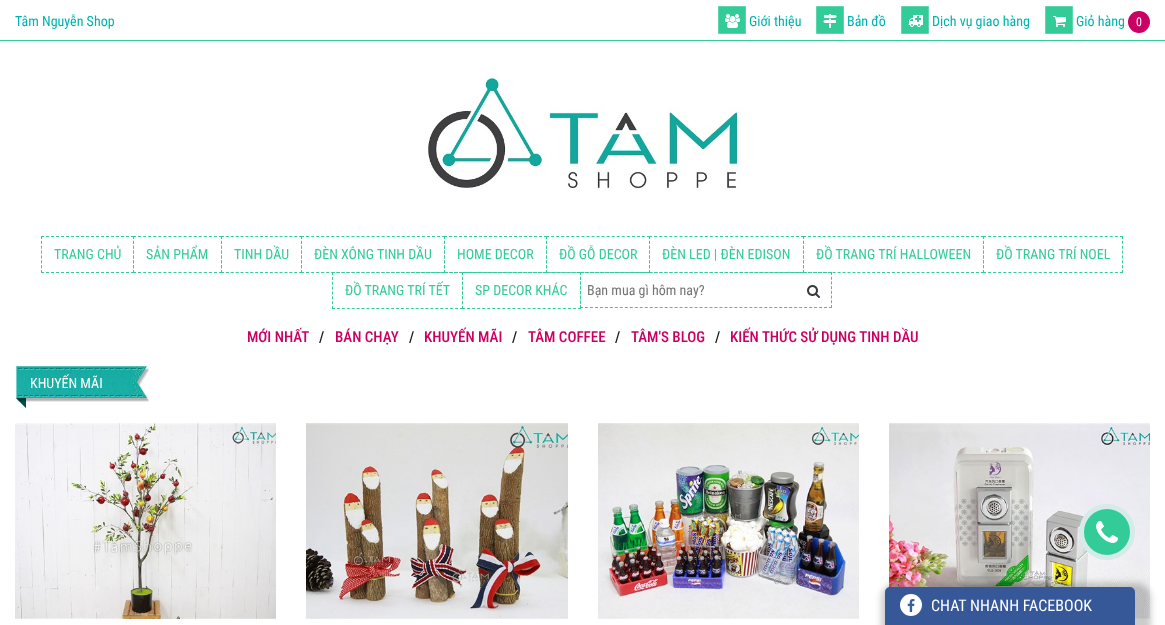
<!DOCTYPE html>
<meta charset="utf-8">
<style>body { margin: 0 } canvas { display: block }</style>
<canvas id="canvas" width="1165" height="625"></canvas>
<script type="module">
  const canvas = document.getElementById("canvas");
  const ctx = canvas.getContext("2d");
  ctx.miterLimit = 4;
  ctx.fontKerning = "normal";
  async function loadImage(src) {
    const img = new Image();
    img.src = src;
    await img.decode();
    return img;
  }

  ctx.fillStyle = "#ffffff";
  ctx.fillRect(0, 0, 1165, 625);
  ctx.fillStyle = "#33cc99";
  ctx.fillRect(0, 40, 1165, 1);
  ctx.font = "14px Roboto Condensed";
  ctx.fillStyle = "#00b4ae";
  ctx.fillText("Tâm Nguyễn Shop", 15, 26);
  ctx.fillStyle = "#33cc99";
  ctx.beginPath();
  ctx.rect(718.5, 6.5, 27, 27);
  ctx.fill();
  ctx.strokeStyle = "#5cd6ad";
  ctx.stroke();
  ctx.drawImage(await loadImage("img1.png"), 725, 14, 15, 14);
  ctx.fillStyle = "#00b4ae";
  ctx.fillText("Giới thiệu", 749, 26);
  ctx.fillStyle = "#33cc99";
  ctx.beginPath();
  ctx.rect(816.5, 6.5, 27, 27);
  ctx.fill();
  ctx.stroke();
  ctx.drawImage(await loadImage("img2.png"), 823, 14, 14, 14);
  ctx.fillStyle = "#00b4ae";
  ctx.fillText("Bản đồ", 847, 26);
  ctx.fillStyle = "#33cc99";
  ctx.beginPath();
  ctx.rect(901.5, 6.5, 27, 27);
  ctx.fill();
  ctx.stroke();
  ctx.drawImage(await loadImage("img3.png"), 908, 15, 15, 12);
  ctx.fillStyle = "#00b4ae";
  ctx.fillText("Dịch vụ giao hàng", 932, 26);
  ctx.fillStyle = "#33cc99";
  ctx.beginPath();
  ctx.rect(1045.5, 6.5, 27, 27);
  ctx.fill();
  ctx.stroke();
  ctx.drawImage(await loadImage("img4.png"), 1053, 16, 13, 11);
  ctx.fillStyle = "#00b4ae";
  ctx.fillText("Giỏ hàng", 1076, 26);
  ctx.fillStyle = "#cb0063";
  ctx.beginPath();
  ctx.arc(1139, 22, 11, 0, Math.PI * 2);
  ctx.fill();
  ctx.font = "12px Roboto Condensed";
  ctx.fillStyle = "#ffffff";
  ctx.fillText("0", 1136, 26);
  ctx.drawImage(await loadImage("img5.png"), 428, 74, 314, 116);
  ctx.beginPath();
  ctx.moveTo(41, 236.5);
  ctx.lineTo(134, 236.5);
  ctx.strokeStyle = "#33cc99";
  ctx.setLineDash([3, 2]);
  ctx.stroke();
  ctx.beginPath();
  ctx.moveTo(133.5, 236);
  ctx.lineTo(133.5, 273);
  ctx.setLineDash([3, 1.86]);
  ctx.stroke();
  ctx.beginPath();
  ctx.moveTo(41, 272.5);
  ctx.lineTo(134, 272.5);
  ctx.setLineDash([3, 2]);
  ctx.stroke();
  ctx.beginPath();
  ctx.moveTo(41.5, 236);
  ctx.lineTo(41.5, 273);
  ctx.setLineDash([3, 1.86]);
  ctx.stroke();
  ctx.font = "14px Roboto Condensed";
  ctx.fillStyle = "#33cc99";
  ctx.fillText("TRANG CHỦ", 54, 259);
  ctx.beginPath();
  ctx.moveTo(133, 236.5);
  ctx.lineTo(222, 236.5);
  ctx.setLineDash([3, 2.06]);
  ctx.stroke();
  ctx.beginPath();
  ctx.moveTo(221.5, 236);
  ctx.lineTo(221.5, 273);
  ctx.setLineDash([3, 1.86]);
  ctx.stroke();
  ctx.beginPath();
  ctx.moveTo(133, 272.5);
  ctx.lineTo(222, 272.5);
  ctx.setLineDash([3, 2.06]);
  ctx.stroke();
  ctx.beginPath();
  ctx.moveTo(133.5, 236);
  ctx.lineTo(133.5, 273);
  ctx.setLineDash([3, 1.86]);
  ctx.stroke();
  ctx.fillText("SẢN PHẨM", 146, 259);
  ctx.beginPath();
  ctx.moveTo(221, 236.5);
  ctx.lineTo(302, 236.5);
  ctx.setLineDash([3, 1.88]);
  ctx.stroke();
  ctx.beginPath();
  ctx.moveTo(301.5, 236);
  ctx.lineTo(301.5, 273);
  ctx.setLineDash([3, 1.86]);
  ctx.stroke();
  ctx.beginPath();
  ctx.moveTo(221, 272.5);
  ctx.lineTo(302, 272.5);
  ctx.setLineDash([3, 1.88]);
  ctx.stroke();
  ctx.beginPath();
  ctx.moveTo(221.5, 236);
  ctx.lineTo(221.5, 273);
  ctx.setLineDash([3, 1.86]);
  ctx.stroke();
  ctx.fillText("TINH DẦU", 234, 259);
  ctx.beginPath();
  ctx.moveTo(301, 236.5);
  ctx.lineTo(445, 236.5);
  ctx.setLineDash([3, 2.04]);
  ctx.stroke();
  ctx.beginPath();
  ctx.moveTo(444.5, 236);
  ctx.lineTo(444.5, 273);
  ctx.setLineDash([3, 1.86]);
  ctx.stroke();
  ctx.beginPath();
  ctx.moveTo(301, 272.5);
  ctx.lineTo(445, 272.5);
  ctx.setLineDash([3, 2.04]);
  ctx.stroke();
  ctx.beginPath();
  ctx.moveTo(301.5, 236);
  ctx.lineTo(301.5, 273);
  ctx.setLineDash([3, 1.86]);
  ctx.stroke();
  ctx.fillText("ĐÈN XÔNG TINH DẦU", 314, 259);
  ctx.beginPath();
  ctx.moveTo(444, 236.5);
  ctx.lineTo(547, 236.5);
  ctx.setLineDash([3, 2]);
  ctx.stroke();
  ctx.beginPath();
  ctx.moveTo(546.5, 236);
  ctx.lineTo(546.5, 273);
  ctx.setLineDash([3, 1.86]);
  ctx.stroke();
  ctx.beginPath();
  ctx.moveTo(444, 272.5);
  ctx.lineTo(547, 272.5);
  ctx.setLineDash([3, 2]);
  ctx.stroke();
  ctx.beginPath();
  ctx.moveTo(444.5, 236);
  ctx.lineTo(444.5, 273);
  ctx.setLineDash([3, 1.86]);
  ctx.stroke();
  ctx.fillText("HOME DECOR", 457, 259);
  ctx.beginPath();
  ctx.moveTo(546, 236.5);
  ctx.lineTo(650, 236.5);
  ctx.setLineDash([3, 2.05]);
  ctx.stroke();
  ctx.beginPath();
  ctx.moveTo(649.5, 236);
  ctx.lineTo(649.5, 273);
  ctx.setLineDash([3, 1.86]);
  ctx.stroke();
  ctx.beginPath();
  ctx.moveTo(546, 272.5);
  ctx.lineTo(650, 272.5);
  ctx.setLineDash([3, 2.05]);
  ctx.stroke();
  ctx.beginPath();
  ctx.moveTo(546.5, 236);
  ctx.lineTo(546.5, 273);
  ctx.setLineDash([3, 1.86]);
  ctx.stroke();
  ctx.fillText("ĐỒ GỖ DECOR", 559, 259);
  ctx.beginPath();
  ctx.moveTo(649, 236.5);
  ctx.lineTo(804, 236.5);
  ctx.setLineDash([3, 2.07]);
  ctx.stroke();
  ctx.beginPath();
  ctx.moveTo(803.5, 236);
  ctx.lineTo(803.5, 273);
  ctx.setLineDash([3, 1.86]);
  ctx.stroke();
  ctx.beginPath();
  ctx.moveTo(649, 272.5);
  ctx.lineTo(804, 272.5);
  ctx.setLineDash([3, 2.07]);
  ctx.stroke();
  ctx.beginPath();
  ctx.moveTo(649.5, 236);
  ctx.lineTo(649.5, 273);
  ctx.setLineDash([3, 1.86]);
  ctx.stroke();
  ctx.fillText("ĐÈN LED | ĐÈN EDISON", 662, 259);
  ctx.beginPath();
  ctx.moveTo(803, 236.5);
  ctx.lineTo(984, 236.5);
  ctx.setLineDash([3, 1.94]);
  ctx.stroke();
  ctx.beginPath();
  ctx.moveTo(983.5, 236);
  ctx.lineTo(983.5, 273);
  ctx.setLineDash([3, 1.86]);
  ctx.stroke();
  ctx.beginPath();
  ctx.moveTo(803, 272.5);
  ctx.lineTo(984, 272.5);
  ctx.setLineDash([3, 1.94]);
  ctx.stroke();
  ctx.beginPath();
  ctx.moveTo(803.5, 236);
  ctx.lineTo(803.5, 273);
  ctx.setLineDash([3, 1.86]);
  ctx.stroke();
  ctx.fillText("ĐỒ TRANG TRÍ HALLOWEEN", 816, 259);
  ctx.beginPath();
  ctx.moveTo(983, 236.5);
  ctx.lineTo(1123, 236.5);
  ctx.setLineDash([3, 2.07]);
  ctx.stroke();
  ctx.beginPath();
  ctx.moveTo(1122.5, 236);
  ctx.lineTo(1122.5, 273);
  ctx.setLineDash([3, 1.86]);
  ctx.stroke();
  ctx.beginPath();
  ctx.moveTo(983, 272.5);
  ctx.lineTo(1123, 272.5);
  ctx.setLineDash([3, 2.07]);
  ctx.stroke();
  ctx.beginPath();
  ctx.moveTo(983.5, 236);
  ctx.lineTo(983.5, 273);
  ctx.setLineDash([3, 1.86]);
  ctx.stroke();
  ctx.fillText("ĐỒ TRANG TRÍ NOEL", 996, 259);
  ctx.beginPath();
  ctx.moveTo(332, 272.5);
  ctx.lineTo(463, 272.5);
  ctx.setLineDash([3, 1.92]);
  ctx.stroke();
  ctx.beginPath();
  ctx.moveTo(462.5, 272);
  ctx.lineTo(462.5, 309);
  ctx.setLineDash([3, 1.86]);
  ctx.stroke();
  ctx.beginPath();
  ctx.moveTo(332, 308.5);
  ctx.lineTo(463, 308.5);
  ctx.setLineDash([3, 1.92]);
  ctx.stroke();
  ctx.beginPath();
  ctx.moveTo(332.5, 272);
  ctx.lineTo(332.5, 309);
  ctx.setLineDash([3, 1.86]);
  ctx.stroke();
  ctx.fillText("ĐỒ TRANG TRÍ TẾT", 345, 295);
  ctx.beginPath();
  ctx.moveTo(462, 272.5);
  ctx.lineTo(581, 272.5);
  ctx.setLineDash([3, 2.04]);
  ctx.stroke();
  ctx.beginPath();
  ctx.moveTo(580.5, 272);
  ctx.lineTo(580.5, 309);
  ctx.setLineDash([3, 1.86]);
  ctx.stroke();
  ctx.beginPath();
  ctx.moveTo(462, 308.5);
  ctx.lineTo(581, 308.5);
  ctx.setLineDash([3, 2.04]);
  ctx.stroke();
  ctx.beginPath();
  ctx.moveTo(462.5, 272);
  ctx.lineTo(462.5, 309);
  ctx.setLineDash([3, 1.86]);
  ctx.stroke();
  ctx.fillText("SP DECOR KHÁC", 475, 295);
  ctx.beginPath();
  ctx.moveTo(580, 272.5);
  ctx.lineTo(832, 272.5);
  ctx.setLineDash([3, 1.98]);
  ctx.stroke();
  ctx.beginPath();
  ctx.moveTo(831.5, 272);
  ctx.lineTo(831.5, 308);
  ctx.setLineDash([3, 1.71]);
  ctx.stroke();
  ctx.beginPath();
  ctx.moveTo(580, 307.5);
  ctx.lineTo(832, 307.5);
  ctx.setLineDash([3, 1.98]);
  ctx.stroke();
  ctx.beginPath();
  ctx.moveTo(580.5, 272);
  ctx.lineTo(580.5, 308);
  ctx.setLineDash([3, 1.71]);
  ctx.stroke();
  ctx.fillStyle = "#757575";
  ctx.fillText("Bạn mua gì hôm nay?", 587, 295);
  ctx.drawImage(await loadImage("img6.png"), 807, 285, 13, 13);
  ctx.font = "500 15px Roboto Condensed";
  ctx.fillStyle = "#cb0063";
  ctx.fillText("MỚI NHẤT", 247, 342);
  ctx.fillStyle = "#131313";
  ctx.fillText("/", 319, 342);
  ctx.fillStyle = "#cb0063";
  ctx.fillText("BÁN CHẠY", 335, 342);
  ctx.fillStyle = "#131313";
  ctx.fillText("/", 409, 342);
  ctx.fillStyle = "#cb0063";
  ctx.fillText("KHUYẾN MÃI", 424, 342);
  ctx.fillStyle = "#131313";
  ctx.fillText("/", 512, 342);
  ctx.fillStyle = "#cb0063";
  ctx.fillText("TÂM COFFEE", 528, 342);
  ctx.fillStyle = "#131313";
  ctx.fillText("/", 615, 342);
  ctx.fillStyle = "#cb0063";
  ctx.fillText("TÂM'S BLOG", 631, 342);
  ctx.fillStyle = "#131313";
  ctx.fillText("/", 715, 342);
  ctx.fillStyle = "#cb0063";
  ctx.fillText("KIẾN THỨC SỬ DỤNG TINH DẦU", 730, 342);
  ctx.drawImage(await loadImage("img7.png"), 30, 366, 103, 36);
  ctx.drawImage(await loadImage("img8.png"), 15, 366, 15, 42);
  ctx.font = "14px Roboto Condensed";
  ctx.fillStyle = "#ffffff";
  ctx.fillText("KHUYẾN MÃI", 30, 388);
  ctx.drawImage(await loadImage("img9.png"), 133, 366, 16, 36);
  ctx.drawImage(await loadImage("img10.png"), 15, 423, 261, 196);
  ctx.drawImage(await loadImage("img11.png"), 306, 423, 262, 196);
  ctx.drawImage(await loadImage("img12.png"), 598, 423, 261, 196);
  ctx.drawImage(await loadImage("img13.png"), 889, 423, 261, 196);
  ctx.fillStyle = "#33cc99";
  ctx.beginPath();
  ctx.arc(1107, 532, 25.5, 0, Math.PI * 2);
  ctx.fill();
  ctx.strokeStyle = "#d4ebea";
  ctx.lineWidth = 5;
  ctx.setLineDash([]);
  ctx.stroke();
  ctx.drawImage(await loadImage("img14.png"), 1096, 521, 22, 22);
  ctx.fillStyle = "rgba(0, 0, 0, 0.2)";
  ctx.filter = "blur(3px)";
  ctx.beginPath();
  ctx.roundRect(881, 583, 270, 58, 15);
  ctx.fill();
  ctx.filter = "none";
  ctx.fillStyle = "#365899";
  ctx.beginPath();
  ctx.roundRect(885, 587, 250, 38, [5, 5, 0, 0]);
  ctx.fill();
  ctx.fillStyle = "#ffffff";
  ctx.beginPath();
  ctx.arc(911, 605, 11, 0, Math.PI * 2);
  ctx.fill();
  ctx.drawImage(await loadImage("img15.png"), 907, 599, 8, 13);
  ctx.font = "16px Roboto Condensed";
  ctx.fillText("CHAT NHANH FACEBOOK", 931, 611);
</script>
